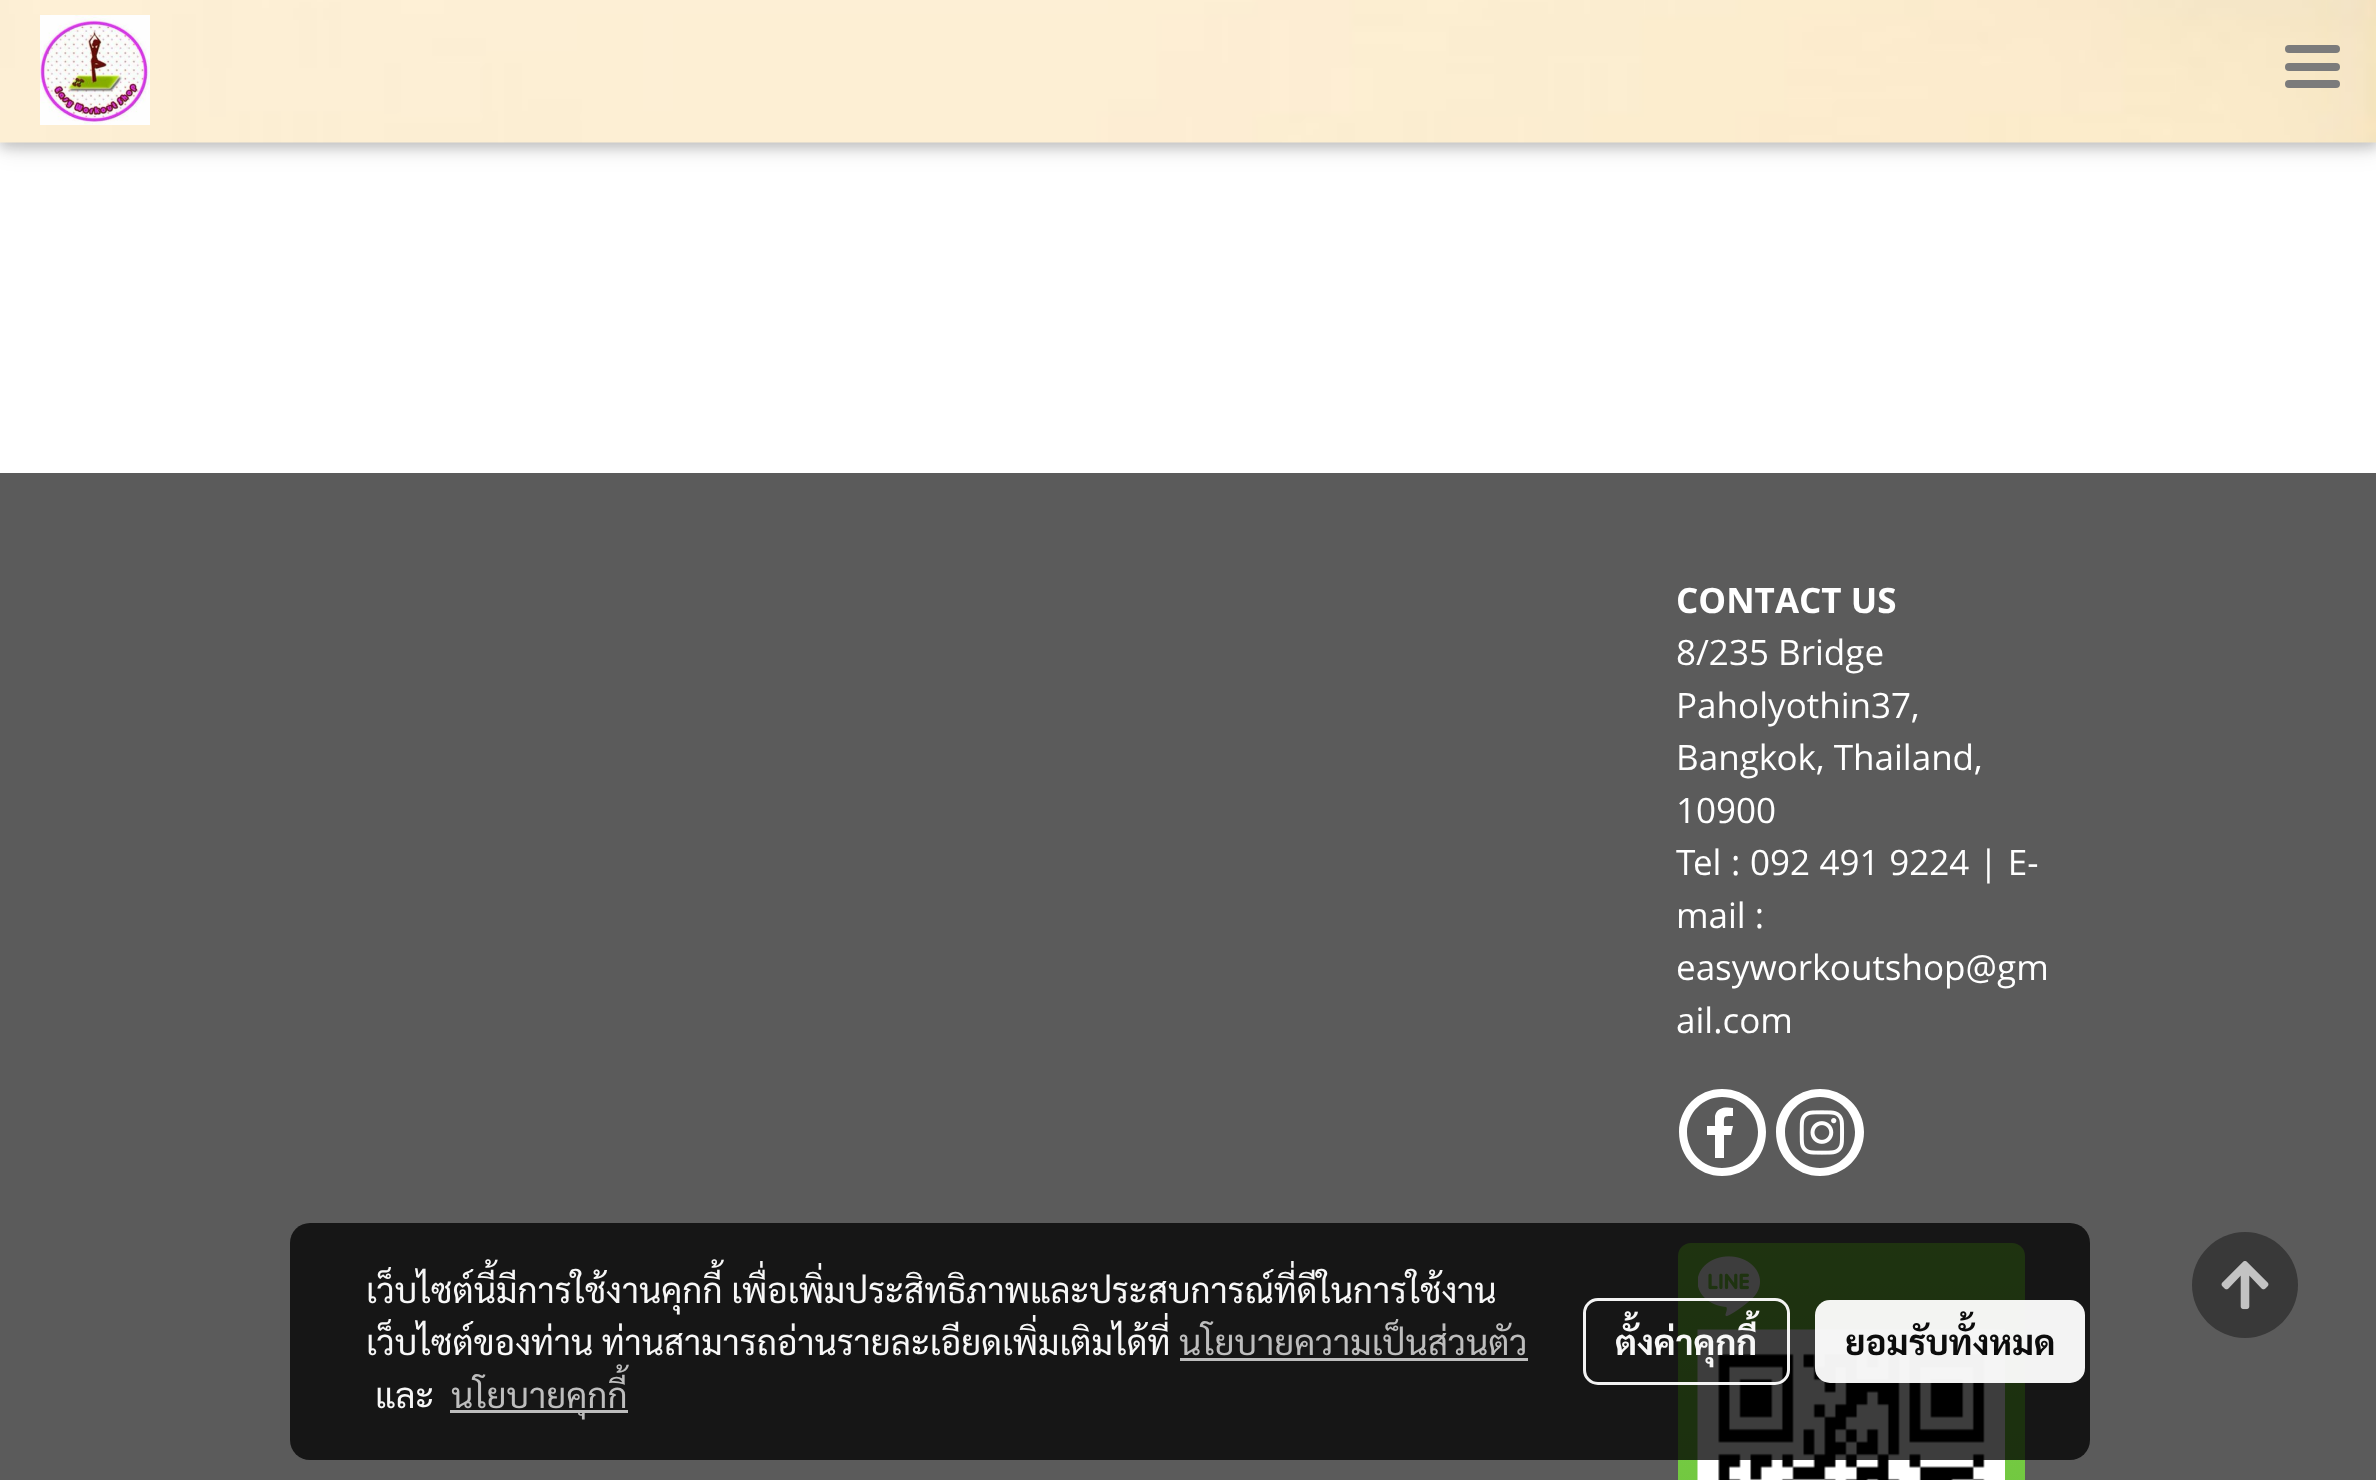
<!DOCTYPE html>
<meta charset="utf-8">
<style>body { margin: 0 } canvas { display: block }</style>
<canvas id="canvas" width="2376" height="1480"></canvas>
<script type="module">
  const canvas = document.getElementById("canvas");
  const ctx = canvas.getContext("2d");
  ctx.miterLimit = 4;
  ctx.fontKerning = "normal";
  async function loadImage(src) {
    const img = new Image();
    img.src = src;
    await img.decode();
    return img;
  }
  let gradient;

  ctx.fillStyle = "#ffffff";
  ctx.fillRect(0, 0, 2376, 1480);
  ctx.fillStyle = "rgba(0, 0, 0, 0.12)";
  ctx.filter = "blur(12.5px)";
  ctx.beginPath();
  ctx.rect(0, 5, 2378, 143);
  ctx.fill();
  ctx.filter = "none";
  ctx.fillStyle = "rgba(0, 0, 0, 0.16)";
  ctx.filter = "blur(6px)";
  ctx.beginPath();
  ctx.rect(0, 5, 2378, 143);
  ctx.fill();
  ctx.filter = "none";
  ctx.drawImage(await loadImage("img1.png"), 0, 0, 2376, 143);
  ctx.drawImage(await loadImage("img2.png"), 40, 15, 110, 110);
  ctx.fillStyle = "#7b7b7b";
  ctx.beginPath();
  ctx.roundRect(2285, 63, 55, 8, 4);
  ctx.fill();
  ctx.beginPath();
  ctx.roundRect(2285, 45, 55, 8, 4);
  ctx.fill();
  ctx.beginPath();
  ctx.roundRect(2285, 80, 55, 8, 4);
  ctx.fill();
  ctx.fillStyle = "#5b5b5b";
  ctx.fillRect(0, 473, 2376, 1007);
  ctx.font = "bold 35px Open Sans";
  ctx.fillStyle = "#ffffff";
  ctx.fillText("CONTACT US", 1676, 613);
  ctx.font = "35px Open Sans";
  ctx.fillText("8/235 Bridge", 1676, 665);
  ctx.fillText("Paholyothin37,", 1676, 718);
  ctx.fillText("Bangkok, Thailand,", 1676, 770);
  ctx.fillText("10900", 1676, 823);
  ctx.wordSpacing = "0.5px";
  ctx.fillText("Tel : 092 491 9224 | E-", 1676, 875);
  ctx.wordSpacing = "0px";
  ctx.fillText("mail :", 1676, 928);
  ctx.fillText("easyworkoutshop@gm", 1676, 980);
  ctx.fillText("ail.com", 1676, 1033);
  ctx.beginPath();
  ctx.moveTo(1722, 1089);
  ctx.bezierCurveTo(1698, 1089, 1679, 1108, 1679, 1132);
  ctx.bezierCurveTo(1679, 1157, 1698, 1176, 1722, 1176);
  ctx.bezierCurveTo(1747, 1176, 1766, 1157, 1766, 1132);
  ctx.bezierCurveTo(1766, 1108, 1747, 1089, 1722, 1089);
  ctx.closePath();
  ctx.moveTo(1722, 1168);
  ctx.bezierCurveTo(1703, 1168, 1687, 1152, 1687, 1132);
  ctx.bezierCurveTo(1687, 1113, 1703, 1097, 1722, 1097);
  ctx.bezierCurveTo(1742, 1097, 1758, 1113, 1758, 1132);
  ctx.bezierCurveTo(1758, 1152, 1742, 1168, 1722, 1168);
  ctx.closePath();
  ctx.fill();
  ctx.beginPath();
  ctx.moveTo(1715, 1158);
  ctx.lineTo(1715, 1135);
  ctx.lineTo(1707, 1135);
  ctx.lineTo(1707, 1126);
  ctx.lineTo(1715, 1126);
  ctx.lineTo(1715, 1116);
  ctx.bezierCurveTo(1717, 1107, 1726, 1107, 1733, 1108);
  ctx.lineTo(1733, 1116);
  ctx.bezierCurveTo(1723, 1116, 1724, 1116, 1724, 1126);
  ctx.lineTo(1733, 1126);
  ctx.lineTo(1731, 1135);
  ctx.lineTo(1724, 1135);
  ctx.lineTo(1724, 1158);
  ctx.fill();
  ctx.beginPath();
  ctx.moveTo(1820, 1089);
  ctx.bezierCurveTo(1796, 1089, 1776, 1108, 1776, 1132);
  ctx.bezierCurveTo(1776, 1157, 1796, 1176, 1820, 1176);
  ctx.bezierCurveTo(1844, 1176, 1864, 1157, 1864, 1132);
  ctx.bezierCurveTo(1864, 1108, 1844, 1089, 1820, 1089);
  ctx.closePath();
  ctx.moveTo(1820, 1168);
  ctx.bezierCurveTo(1801, 1168, 1785, 1152, 1785, 1132);
  ctx.bezierCurveTo(1785, 1113, 1801, 1097, 1820, 1097);
  ctx.bezierCurveTo(1839, 1097, 1855, 1113, 1855, 1132);
  ctx.bezierCurveTo(1855, 1152, 1839, 1168, 1820, 1168);
  ctx.closePath();
  ctx.fill();
  ctx.drawImage(await loadImage("img3.png"), 1799, 1110, 46, 45);
  gradient = ctx.createLinearGradient(1851, 1243, 1851, 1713);
  gradient.addColorStop(0, "#80d544");
  gradient.addColorStop(1, "#65bc3e");
  ctx.fillStyle = gradient;
  ctx.beginPath();
  ctx.roundRect(1678, 1243, 347, 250, 13);
  ctx.fill();
  ctx.drawImage(await loadImage("img4.png"), 1698, 1256, 62, 61);
  ctx.drawImage(await loadImage("img5.png"), 1697, 1329, 308, 151);
  ctx.fillStyle = "rgba(0, 0, 0, 0.76)";
  ctx.beginPath();
  ctx.roundRect(290, 1223, 1800, 237, 20);
  ctx.fill();
  ctx.font = "35px Sarabun";
  ctx.fillStyle = "#f7f7f7";
  ctx.fillText("เว็บไซต์นี้มีการใช้งานคุกกี้ เพื่อเพิ่มประสิทธิภาพและประสบการณ์ที่ดีในการใช้งาน", 366, 1303);
  ctx.fillText("เว็บไซต์ของท่าน ท่านสามารถอ่านรายละเอียดเพิ่มเติมได้ที่", 366, 1355);
  ctx.fillStyle = "#bdbdbd";
  ctx.fillText("นโยบายความเป็นส่วนตัว", 1179, 1355);
  ctx.fillRect(1180, 1358, 348, 3);
  ctx.fillStyle = "#f7f7f7";
  ctx.fillText("และ", 375, 1408);
  ctx.fillStyle = "#bdbdbd";
  ctx.fillRect(450, 1410, 178, 3);
  ctx.fillText("นโยบายคุกกี้", 451, 1408);
  ctx.beginPath();
  ctx.roundRect(1584.5, 1299.5, 204, 84, 13.5);
  ctx.strokeStyle = "rgba(255, 255, 255, 0.95)";
  ctx.lineWidth = 3;
  ctx.stroke();
  ctx.font = "bold 35px Sarabun";
  ctx.fillStyle = "#f7f7f7";
  ctx.fillText("ตั้งค่าคุกกี้", 1615, 1355);
  ctx.fillStyle = "rgba(255, 255, 255, 0.95)";
  ctx.beginPath();
  ctx.roundRect(1815, 1300, 270, 83, 15);
  ctx.fill();
  ctx.fillStyle = "#0c0c0c";
  ctx.fillText("ยอมรับทั้งหมด", 1845, 1355);
  ctx.fillStyle = "#393939";
  ctx.beginPath();
  ctx.moveTo(2245, 1232);
  ctx.bezierCurveTo(2216, 1232, 2192, 1256, 2192, 1285);
  ctx.bezierCurveTo(2192, 1314, 2216, 1338, 2245, 1338);
  ctx.bezierCurveTo(2274, 1338, 2298, 1314, 2298, 1285);
  ctx.bezierCurveTo(2298, 1256, 2274, 1232, 2245, 1232);
  ctx.closePath();
  ctx.fill();
  ctx.drawImage(await loadImage("img6.png"), 2221, 1261, 48, 49);
</script>
